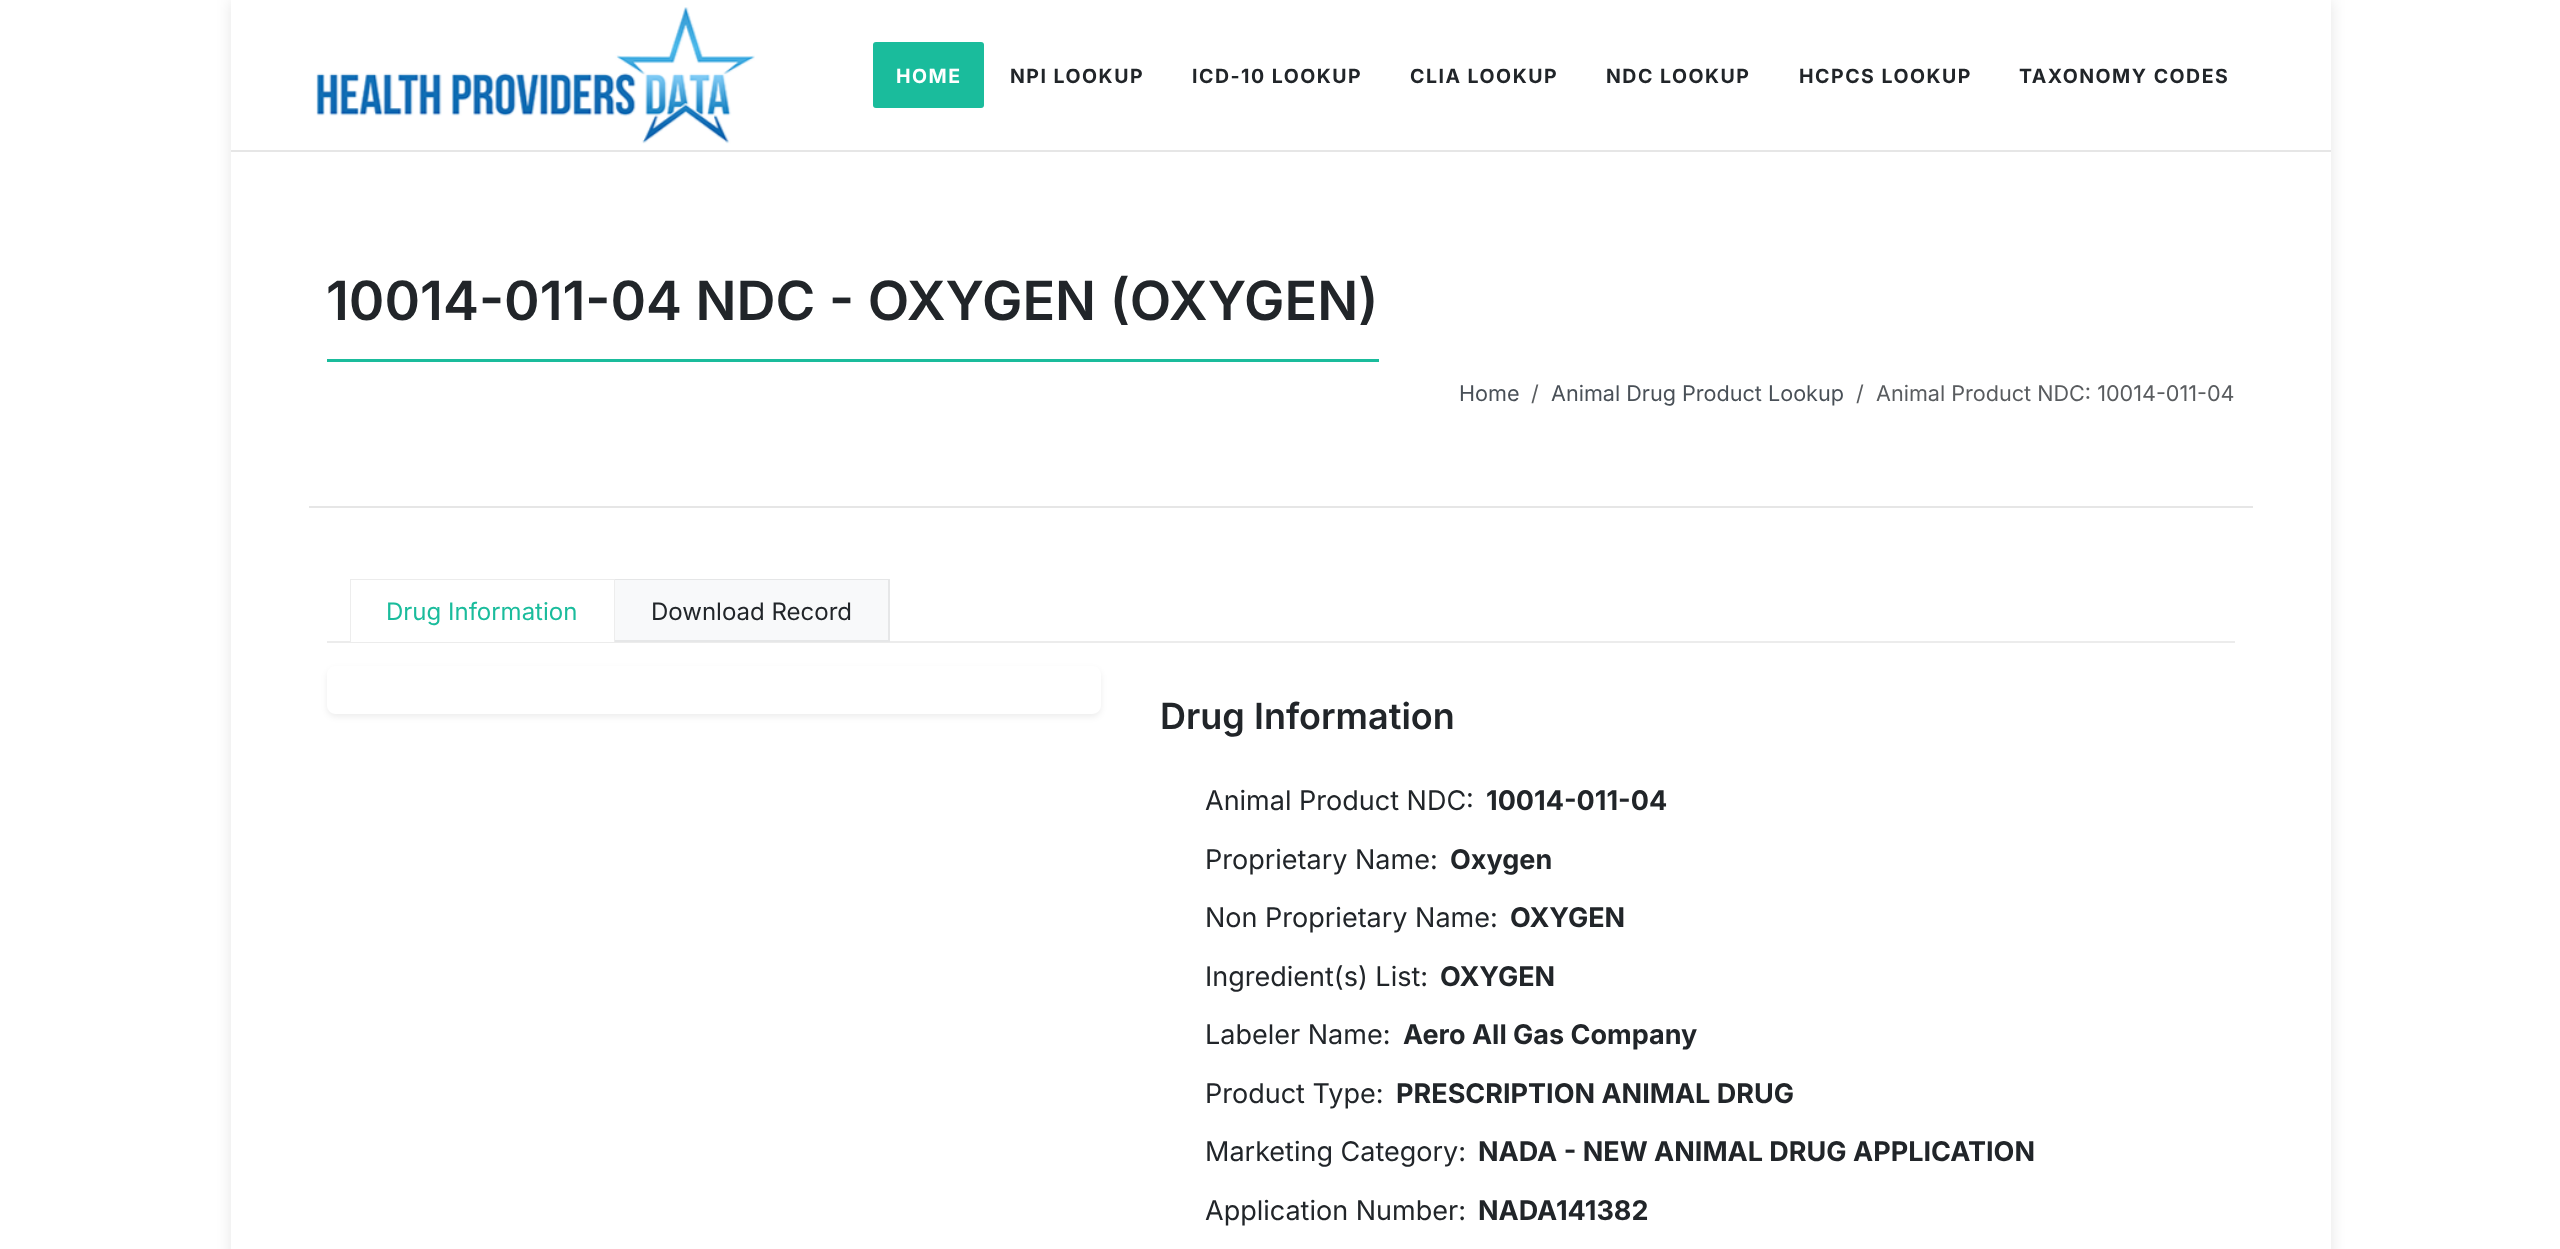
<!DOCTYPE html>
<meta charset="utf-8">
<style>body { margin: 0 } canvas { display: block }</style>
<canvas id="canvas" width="2560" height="1249"></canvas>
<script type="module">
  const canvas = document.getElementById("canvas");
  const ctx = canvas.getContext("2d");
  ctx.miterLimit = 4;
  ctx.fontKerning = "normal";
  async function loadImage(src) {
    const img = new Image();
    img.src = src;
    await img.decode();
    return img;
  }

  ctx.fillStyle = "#ffffff";
  ctx.fillRect(0, 0, 2560, 1249);
  ctx.save();
  ctx.beginPath();
  ctx.moveTo(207, 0);
  ctx.lineTo(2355, 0);
  ctx.lineTo(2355, 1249);
  ctx.lineTo(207, 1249);
  ctx.closePath();
  ctx.moveTo(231, 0);
  ctx.lineTo(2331, 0);
  ctx.lineTo(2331, 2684);
  ctx.lineTo(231, 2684);
  ctx.closePath();
  ctx.clip("evenodd");
  ctx.fillStyle = "rgba(0, 0, 0, 0.1)";
  ctx.filter = "blur(7.5px)";
  ctx.beginPath();
  ctx.rect(231, 0, 2100, 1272);
  ctx.fill();
  ctx.filter = "none";
  ctx.restore();
  ctx.fillStyle = "#e6e6e6";
  ctx.fillRect(231, 150, 2100, 2);
  ctx.drawImage(await loadImage("img1.png"), 316, 7, 439, 137);
  ctx.fillStyle = "#1abc9c";
  ctx.beginPath();
  ctx.roundRect(873, 42, 111, 66, 3);
  ctx.fill();
  ctx.letterSpacing = "1.5px";
  ctx.font = "bold 19.5px Inter";
  ctx.fillStyle = "#ffffff";
  ctx.fillText("HOME", 896, 83);
  ctx.fillStyle = "#212529";
  ctx.fillText("NPI LOOKUP", 1010, 83);
  ctx.fillText("ICD-10 LOOKUP", 1192, 83);
  ctx.fillText("CLIA LOOKUP", 1410, 83);
  ctx.fillText("NDC LOOKUP", 1606, 83);
  ctx.fillText("HCPCS LOOKUP", 1799, 83);
  ctx.fillText("TAXONOMY CODES", 2019, 83);
  ctx.fillStyle = "#e6e6e6";
  ctx.fillRect(309, 506, 1944, 2);
  ctx.fillStyle = "#1abc9c";
  ctx.fillRect(327, 359, 1052, 3);
  ctx.letterSpacing = "0px";
  ctx.font = "600 54px Inter";
  ctx.fillStyle = "#212529";
  ctx.fillText("10014-011-04 NDC - OXYGEN (OXYGEN)", 326, 320);
  ctx.font = "21.6px Inter";
  ctx.fillStyle = "#495057";
  ctx.fillText("Home", 1459, 401);
  ctx.fillStyle = "#595c5f";
  ctx.fillText("/", 1531, 401);
  ctx.fillStyle = "#495057";
  ctx.fillText("Animal Drug Product Lookup", 1551, 401);
  ctx.fillStyle = "#595c5f";
  ctx.fillText("/", 1856, 401);
  ctx.fillText("Animal Product NDC: 10014-011-04", 1876, 401);
  ctx.fillStyle = "#ececec";
  ctx.fillRect(327, 641, 1908, 2);
  ctx.fillStyle = "#ffffff";
  ctx.fillRect(350, 641, 265, 1);
  ctx.fillStyle = "#ececec";
  ctx.beginPath();
  ctx.moveTo(350, 579);
  ctx.lineTo(615, 579);
  ctx.lineTo(614, 580);
  ctx.lineTo(351, 580);
  ctx.closePath();
  ctx.fill();
  ctx.fillStyle = "rgba(0, 0, 0, 0.07)";
  ctx.beginPath();
  ctx.moveTo(615, 579);
  ctx.lineTo(615, 642);
  ctx.lineTo(614, 642);
  ctx.lineTo(614, 580);
  ctx.closePath();
  ctx.fill();
  ctx.beginPath();
  ctx.moveTo(350, 642);
  ctx.lineTo(350, 579);
  ctx.lineTo(351, 580);
  ctx.lineTo(351, 642);
  ctx.closePath();
  ctx.fill();
  ctx.font = "24px Inter";
  ctx.fillStyle = "#1abc9c";
  ctx.fillText("Drug Information", 386, 620);
  ctx.fillStyle = "#f8f9fa";
  ctx.fillRect(615, 579, 275, 63);
  ctx.fillStyle = "#e5e6e7";
  ctx.beginPath();
  ctx.moveTo(615, 579);
  ctx.lineTo(890, 579);
  ctx.lineTo(888, 580);
  ctx.lineTo(615, 580);
  ctx.closePath();
  ctx.fill();
  ctx.fillStyle = "rgba(0, 0, 0, 0.07)";
  ctx.beginPath();
  ctx.moveTo(890, 579);
  ctx.lineTo(890, 642);
  ctx.lineTo(888, 640);
  ctx.lineTo(888, 580);
  ctx.closePath();
  ctx.fill();
  ctx.beginPath();
  ctx.moveTo(890, 642);
  ctx.lineTo(615, 642);
  ctx.lineTo(615, 640);
  ctx.lineTo(888, 640);
  ctx.closePath();
  ctx.fill();
  ctx.fillStyle = "#212529";
  ctx.fillText("Download Record", 651, 620);
  ctx.save();
  ctx.beginPath();
  ctx.moveTo(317, 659);
  ctx.lineTo(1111, 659);
  ctx.lineTo(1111, 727);
  ctx.lineTo(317, 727);
  ctx.closePath();
  ctx.moveTo(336, 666);
  ctx.lineTo(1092, 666);
  ctx.bezierCurveTo(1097, 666, 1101, 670, 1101, 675);
  ctx.lineTo(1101, 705);
  ctx.bezierCurveTo(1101, 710, 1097, 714, 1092, 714);
  ctx.lineTo(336, 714);
  ctx.bezierCurveTo(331, 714, 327, 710, 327, 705);
  ctx.lineTo(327, 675);
  ctx.bezierCurveTo(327, 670, 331, 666, 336, 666);
  ctx.closePath();
  ctx.clip("evenodd");
  ctx.fillStyle = "rgba(0, 0, 0, 0.07)";
  ctx.filter = "blur(3px)";
  ctx.beginPath();
  ctx.roundRect(327, 669, 774, 48, 9);
  ctx.fill();
  ctx.filter = "none";
  ctx.restore();
  ctx.font = "600 36px Inter";
  ctx.fillText("Drug Information", 1160, 729);
  ctx.font = "27px Inter";
  ctx.fillText("Animal Product NDC:", 1205, 810);
  ctx.font = "bold 27px Inter";
  ctx.fillText("10014-011-04", 1486, 810);
  ctx.font = "27px Inter";
  ctx.fillText("Proprietary Name:", 1205, 869);
  ctx.font = "bold 27px Inter";
  ctx.fillText("Oxygen", 1450, 869);
  ctx.font = "27px Inter";
  ctx.fillText("Non Proprietary Name:", 1205, 927);
  ctx.font = "bold 27px Inter";
  ctx.fillText("OXYGEN", 1510, 927);
  ctx.font = "27px Inter";
  ctx.fillText("Ingredient(s) List:", 1205, 986);
  ctx.font = "bold 27px Inter";
  ctx.fillText("OXYGEN", 1440, 986);
  ctx.font = "27px Inter";
  ctx.fillText("Labeler Name:", 1205, 1044);
  ctx.font = "bold 27px Inter";
  ctx.fillText("Aero All Gas Company", 1403, 1044);
  ctx.font = "27px Inter";
  ctx.fillText("Product Type:", 1205, 1103);
  ctx.font = "bold 27px Inter";
  ctx.fillText("PRESCRIPTION ANIMAL DRUG", 1396, 1103);
  ctx.font = "27px Inter";
  ctx.fillText("Marketing Category:", 1205, 1161);
  ctx.font = "bold 27px Inter";
  ctx.fillText("NADA - NEW ANIMAL DRUG APPLICATION", 1478, 1161);
  ctx.font = "27px Inter";
  ctx.fillText("Application Number:", 1205, 1220);
  ctx.font = "bold 27px Inter";
  ctx.fillText("NADA141382", 1478, 1220);
</script>
